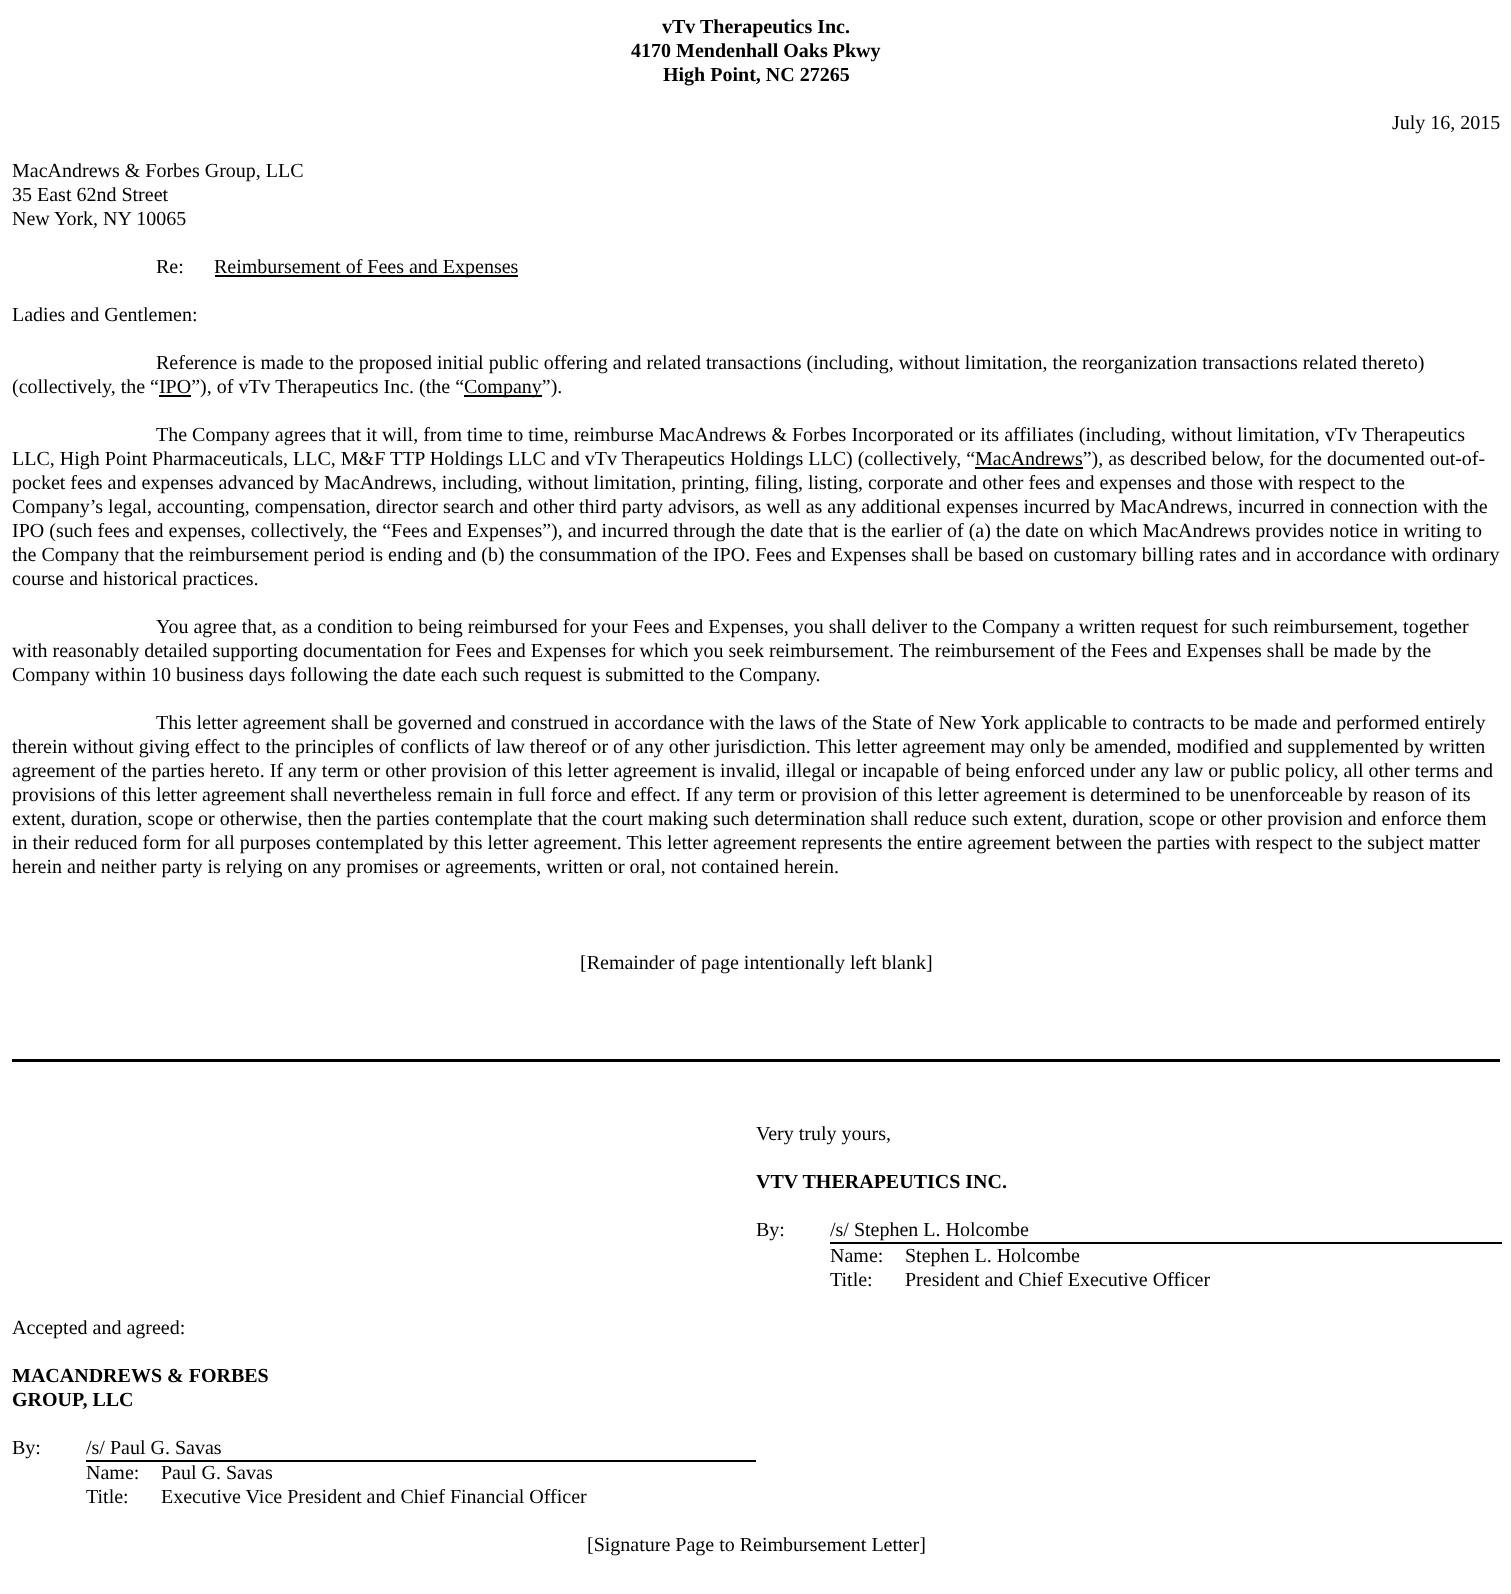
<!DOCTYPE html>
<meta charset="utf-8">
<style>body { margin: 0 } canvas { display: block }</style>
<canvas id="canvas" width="1511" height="1594"></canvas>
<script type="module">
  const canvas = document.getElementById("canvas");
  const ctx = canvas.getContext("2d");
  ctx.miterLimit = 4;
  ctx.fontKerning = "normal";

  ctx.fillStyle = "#ffffff";
  ctx.fillRect(0, 0, 1511, 1594);
  ctx.font = "bold 20px Liberation Serif";
  ctx.fillStyle = "#000000";
  ctx.fillText("vTv Therapeutics Inc.", 662, 33);
  ctx.fillText("4170 Mendenhall Oaks Pkwy", 631, 57);
  ctx.fillText("High Point, NC 27265", 663, 81);
  ctx.font = "20px Liberation Serif";
  ctx.fillText("July 16, 2015", 1392, 129);
  ctx.fillText("MacAndrews & Forbes Group, LLC", 12, 177);
  ctx.fillText("35 East 62nd Street", 12, 201);
  ctx.fillText("New York, NY 10065", 12, 225);
  ctx.fillText("Re:", 156, 273);
  ctx.fillRect(215, 275, 303, 2);
  ctx.fillText("Reimbursement of Fees and Expenses", 214, 273);
  ctx.fillText("Ladies and Gentlemen:", 12, 321);
  ctx.fillText("Reference is made to the proposed initial public offering and related transactions (including, without limitation, the reorganization transactions related thereto)", 156, 369);
  ctx.fillText("(collectively, the “IPO”), of vTv Therapeutics Inc. (the “", 12, 393);
  ctx.fillRect(464, 395, 78, 2);
  ctx.fillText("Company”).", 464, 393);
  ctx.fillRect(159, 395, 32, 2);
  ctx.fillText("The Company agrees that it will, from time to time, reimburse MacAndrews & Forbes Incorporated or its affiliates (including, without limitation, vTv Therapeutics", 156, 441);
  ctx.fillText("LLC, High Point Pharmaceuticals, LLC, M&F TTP Holdings LLC and vTv Therapeutics Holdings LLC) (collectively, “", 12, 465);
  ctx.fillRect(975, 467, 108, 2);
  ctx.fillText("MacAndrews”), as described below, for the documented out-of-", 975, 465);
  ctx.fillText("pocket fees and expenses advanced by MacAndrews, including, without limitation, printing, filing, listing, corporate and other fees and expenses and those with respect to the", 12, 489);
  ctx.fillText("Company’s legal, accounting, compensation, director search and other third party advisors, as well as any additional expenses incurred by MacAndrews, incurred in connection with the", 12, 513);
  ctx.fillText("IPO (such fees and expenses, collectively, the “Fees and Expenses”), and incurred through the date that is the earlier of (a) the date on which MacAndrews provides notice in writing to", 12, 537);
  ctx.fillText("the Company that the reimbursement period is ending and (b) the consummation of the IPO. Fees and Expenses shall be based on customary billing rates and in accordance with ordinary", 12, 561);
  ctx.fillText("course and historical practices.", 12, 585);
  ctx.fillText("You agree that, as a condition to being reimbursed for your Fees and Expenses, you shall deliver to the Company a written request for such reimbursement, together", 156, 633);
  ctx.fillText("with reasonably detailed supporting documentation for Fees and Expenses for which you seek reimbursement. The reimbursement of the Fees and Expenses shall be made by the", 12, 657);
  ctx.fillText("Company within 10 business days following the date each such request is submitted to the Company.", 12, 681);
  ctx.fillText("This letter agreement shall be governed and construed in accordance with the laws of the State of New York applicable to contracts to be made and performed entirely", 156, 729);
  ctx.fillText("therein without giving effect to the principles of conflicts of law thereof or of any other jurisdiction. This letter agreement may only be amended, modified and supplemented by written", 12, 753);
  ctx.fillText("agreement of the parties hereto. If any term or other provision of this letter agreement is invalid, illegal or incapable of being enforced under any law or public policy, all other terms and", 12, 777);
  ctx.fillText("provisions of this letter agreement shall nevertheless remain in full force and effect. If any term or provision of this letter agreement is determined to be unenforceable by reason of its", 12, 801);
  ctx.fillText("extent, duration, scope or otherwise, then the parties contemplate that the court making such determination shall reduce such extent, duration, scope or other provision and enforce them", 12, 825);
  ctx.fillText("in their reduced form for all purposes contemplated by this letter agreement. This letter agreement represents the entire agreement between the parties with respect to the subject matter", 12, 849);
  ctx.fillText("herein and neither party is relying on any promises or agreements, written or oral, not contained herein.", 12, 873);
  ctx.fillText("[Remainder of page intentionally left blank]", 580, 969);
  ctx.fillRect(12, 1059, 1488, 3);
  ctx.fillText("Very truly yours,", 756, 1140);
  ctx.font = "bold 20px Liberation Serif";
  ctx.fillText("VTV THERAPEUTICS INC.", 756, 1188);
  ctx.font = "20px Liberation Serif";
  ctx.fillText("By:", 756, 1236);
  ctx.fillRect(830, 1242, 672, 2);
  ctx.fillText("/s/ Stephen L. Holcombe", 830, 1236);
  ctx.fillText("Name:", 830, 1262);
  ctx.fillText("Stephen L. Holcombe", 905, 1262);
  ctx.fillText("Title:", 830, 1286);
  ctx.fillText("President and Chief Executive Officer", 905, 1286);
  ctx.fillText("Accepted and agreed:", 12, 1334);
  ctx.font = "bold 20px Liberation Serif";
  ctx.fillText("MACANDREWS & FORBES", 12, 1382);
  ctx.fillText("GROUP, LLC", 12, 1406);
  ctx.font = "20px Liberation Serif";
  ctx.fillText("By:", 12, 1454);
  ctx.fillRect(86, 1460, 670, 2);
  ctx.fillText("/s/ Paul G. Savas", 86, 1454);
  ctx.fillText("Name:", 86, 1479);
  ctx.fillText("Paul G. Savas", 161, 1479);
  ctx.fillText("Title:", 86, 1503);
  ctx.fillText("Executive Vice President and Chief Financial Officer", 161, 1503);
  ctx.fillText("[Signature Page to Reimbursement Letter]", 587, 1551);
</script>
